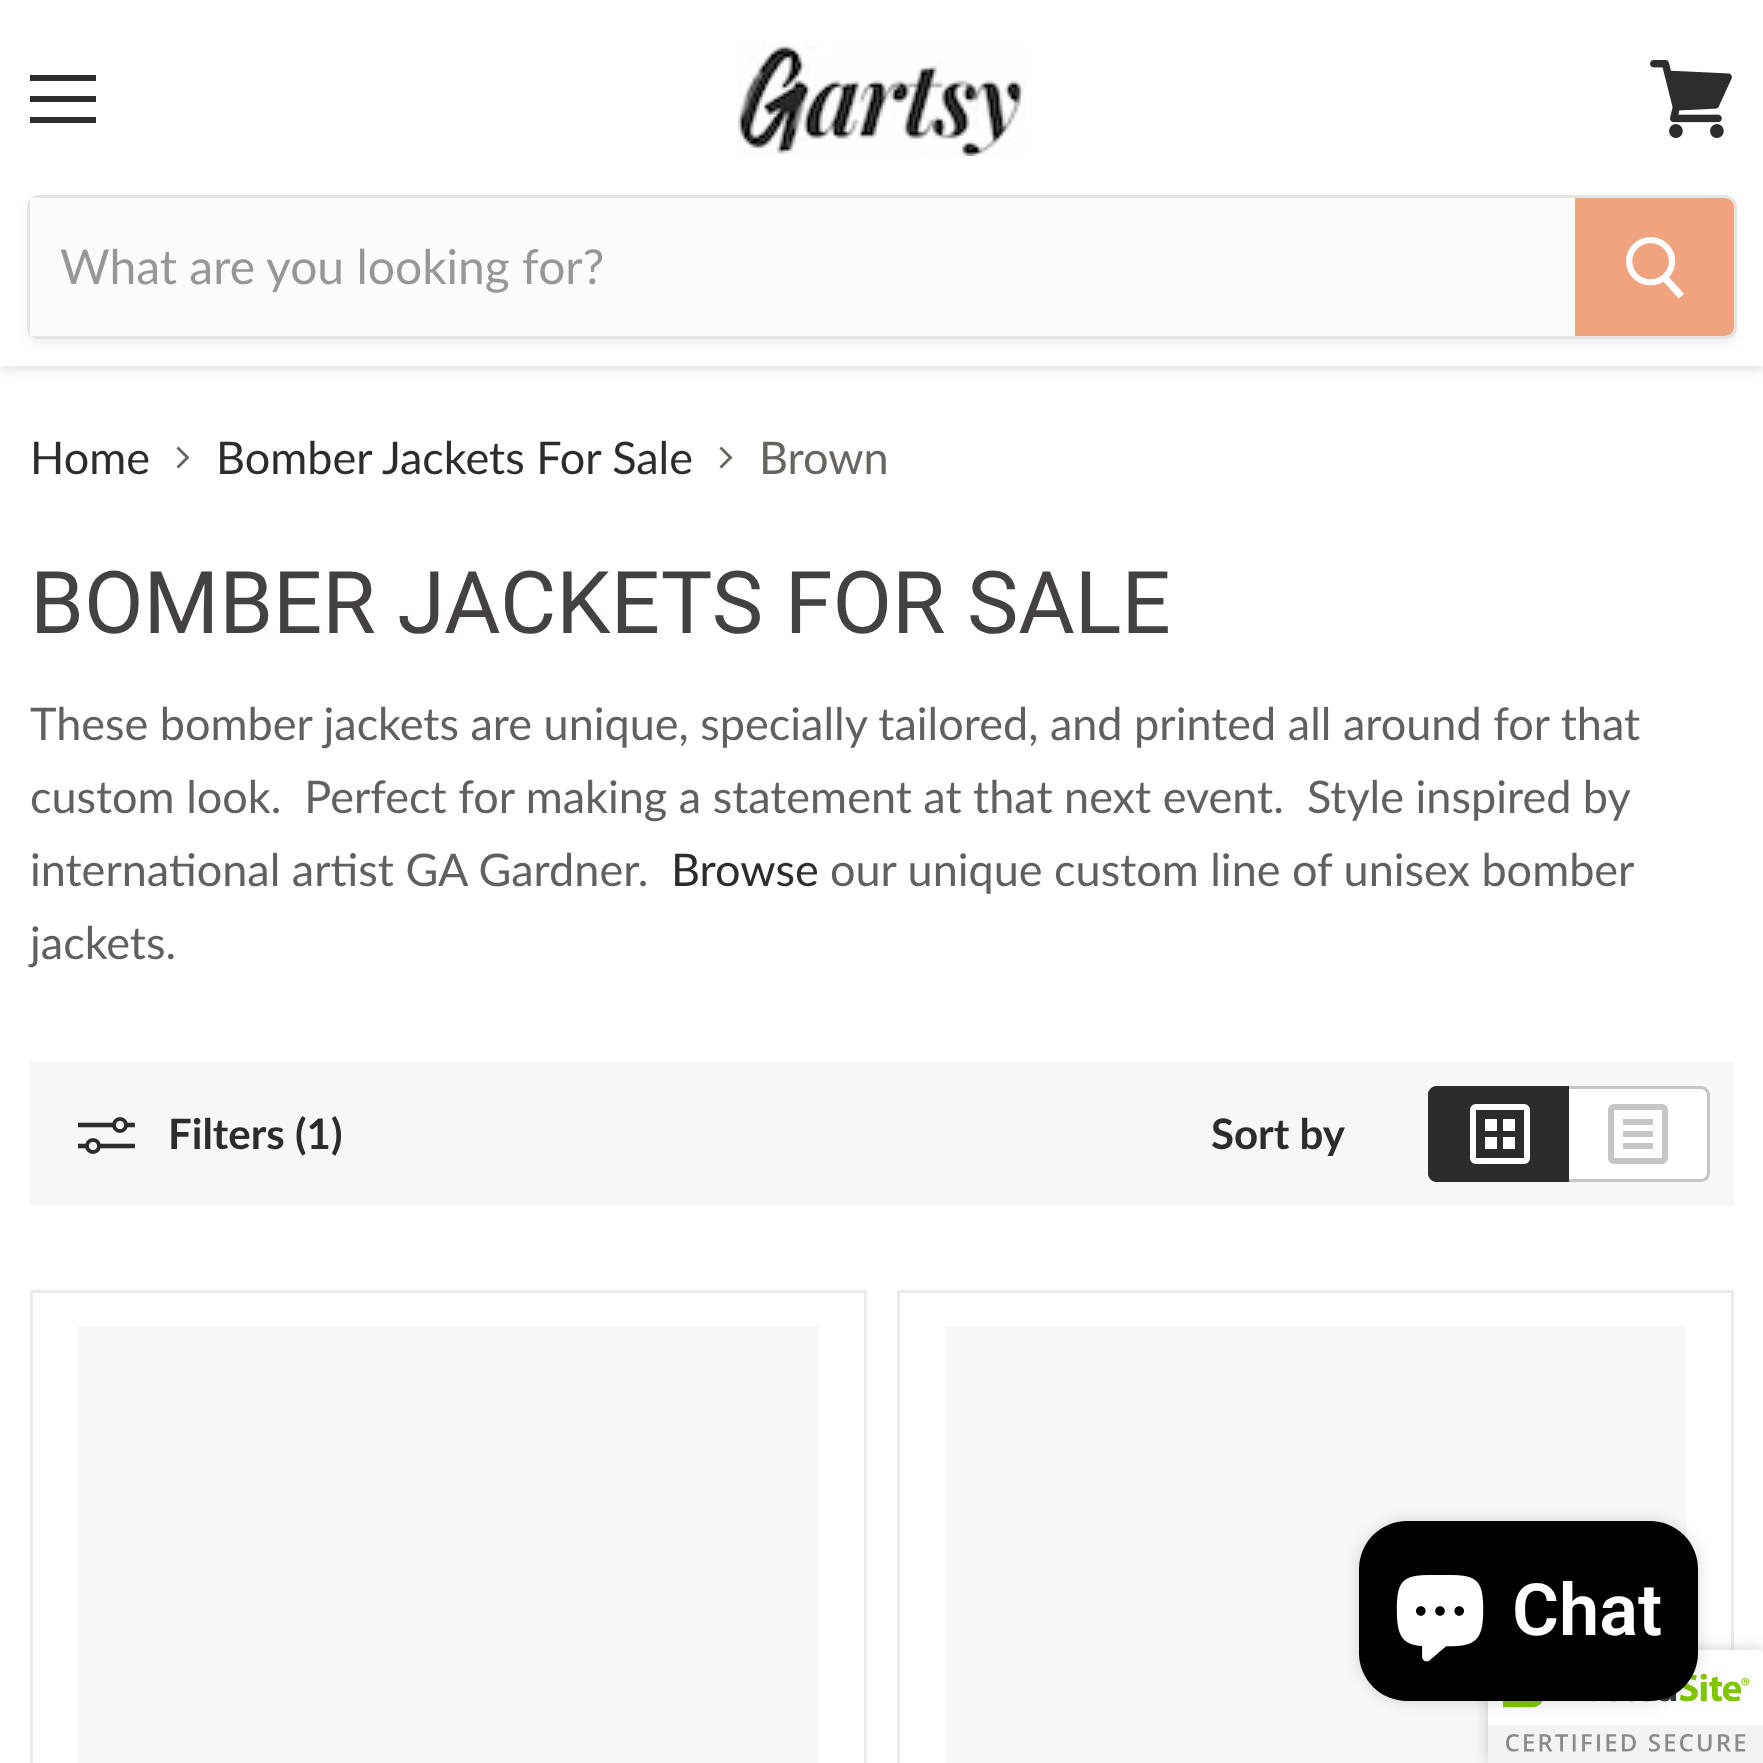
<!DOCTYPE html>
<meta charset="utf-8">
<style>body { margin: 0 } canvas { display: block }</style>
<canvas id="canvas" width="1763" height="1763"></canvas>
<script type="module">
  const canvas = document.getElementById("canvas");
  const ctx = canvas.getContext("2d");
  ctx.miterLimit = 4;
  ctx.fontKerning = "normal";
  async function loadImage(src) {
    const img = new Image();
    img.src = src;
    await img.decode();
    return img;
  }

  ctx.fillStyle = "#ffffff";
  ctx.fillRect(0, 0, 1763, 1763);
  ctx.save();
  ctx.beginPath();
  ctx.rect(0, 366, 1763, 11);
  ctx.clip();
  ctx.fillStyle = "rgba(127, 127, 127, 0.25)";
  ctx.filter = "blur(6px)";
  ctx.beginPath();
  ctx.rect(0, 3, 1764, 366);
  ctx.fill();
  ctx.filter = "none";
  ctx.restore();
  ctx.fillStyle = "#2e2d2d";
  ctx.fillRect(30, 75, 66, 6);
  ctx.fillRect(30, 96, 66, 6);
  ctx.fillRect(30, 117, 66, 6);
  ctx.drawImage(await loadImage("img1.png"), 1650, 60, 82, 78);
  ctx.drawImage(await loadImage("img2.png"), 738, 44, 288, 112);
  ctx.save();
  ctx.beginPath();
  ctx.moveTo(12, 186);
  ctx.lineTo(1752, 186);
  ctx.lineTo(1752, 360);
  ctx.lineTo(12, 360);
  ctx.closePath();
  ctx.moveTo(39, 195);
  ctx.lineTo(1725, 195);
  ctx.bezierCurveTo(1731.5, 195, 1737, 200.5, 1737, 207);
  ctx.lineTo(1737, 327);
  ctx.bezierCurveTo(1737, 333.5, 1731.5, 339, 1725, 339);
  ctx.lineTo(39, 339);
  ctx.bezierCurveTo(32.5, 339, 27, 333.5, 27, 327);
  ctx.lineTo(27, 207);
  ctx.bezierCurveTo(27, 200.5, 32.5, 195, 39, 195);
  ctx.closePath();
  ctx.clip("evenodd");
  ctx.fillStyle = "rgba(127, 127, 127, 0.11)";
  ctx.filter = "blur(4.5px)";
  ctx.beginPath();
  ctx.roundRect(27, 201, 1710, 144, 12);
  ctx.fill();
  ctx.filter = "none";
  ctx.restore();
  ctx.beginPath();
  ctx.roundRect(28.5, 196.5, 1707, 141, 10.5);
  ctx.strokeStyle = "rgba(127, 127, 127, 0.2)";
  ctx.lineWidth = 3;
  ctx.stroke();
  ctx.fillStyle = "#fcfcfc";
  ctx.fillRect(30, 198, 1545, 138);
  ctx.font = "48px Lato";
  ctx.fillStyle = "#979797";
  ctx.fillText("What are you looking for?", 60, 284);
  ctx.fillStyle = "#efa37e";
  ctx.beginPath();
  ctx.roundRect(1576.5, 199.5, 156, 135, [0, 7.5, 7.5, 0]);
  ctx.fill();
  ctx.strokeStyle = "#efa37e";
  ctx.stroke();
  ctx.drawImage(await loadImage("img3.png"), 1626, 237, 58, 62);
  ctx.font = "45px Lato";
  ctx.fillStyle = "#2d2b2b";
  ctx.fillText("Home", 30, 474);
  ctx.fillStyle = "#686560";
  ctx.beginPath();
  ctx.moveTo(176.5, 466.5);
  ctx.lineTo(178.5, 468.5);
  ctx.lineTo(189.5, 457.5);
  ctx.lineTo(178.5, 446.5);
  ctx.lineTo(176.5, 448.5);
  ctx.lineTo(185.5, 457.5);
  ctx.closePath();
  ctx.fill("evenodd");
  ctx.fillStyle = "#2d2b2b";
  ctx.fillText("Bomber Jackets For Sale", 216, 474);
  ctx.fillStyle = "#686560";
  ctx.beginPath();
  ctx.moveTo(719.5, 466.5);
  ctx.lineTo(721.5, 468.5);
  ctx.lineTo(732.5, 457.5);
  ctx.lineTo(721.5, 446.5);
  ctx.lineTo(719.5, 448.5);
  ctx.lineTo(728.5, 457.5);
  ctx.closePath();
  ctx.fill("evenodd");
  ctx.fillText("Brown", 759, 474);
  ctx.font = "86.6px Roboto";
  ctx.fillStyle = "#434141";
  ctx.fillText("BOMBER JACKETS FOR SALE", 30, 633);
  ctx.font = "45px Lato";
  ctx.fillStyle = "#615f5f";
  ctx.fillText("These bomber jackets are unique, specially tailored, and printed all around for that", 30, 740);
  ctx.fillText("custom look.  Perfect for making a statement at that next event.  Style inspired by", 30, 813);
  ctx.fillText("international artist GA Gardner.", 30, 886);
  ctx.fillStyle = "#2d2b2b";
  ctx.fillText("Browse", 671, 886);
  ctx.fillStyle = "#615f5f";
  ctx.fillText("our unique custom line of unisex bomber", 830, 886);
  ctx.fillText("jackets.", 30, 959);
  ctx.fillStyle = "#f7f7f7";
  ctx.fillRect(30, 1062, 1704, 144);
  ctx.drawImage(await loadImage("img4.png"), 78, 1117, 57, 37);
  ctx.font = "bold 42px Lato";
  ctx.fillStyle = "#2d2b2b";
  ctx.fillText("Filters (1)", 168, 1149);
  ctx.fillText("Sort by", 1211, 1149);
  ctx.beginPath();
  ctx.roundRect(1428, 1086, 141, 96, [9, 0, 0, 9]);
  ctx.fill();
  ctx.beginPath();
  ctx.moveTo(1437, 1086);
  ctx.lineTo(1569, 1086);
  ctx.lineTo(1569, 1182);
  ctx.lineTo(1437, 1182);
  ctx.bezierCurveTo(1432, 1182, 1428, 1178, 1428, 1173);
  ctx.lineTo(1428, 1095);
  ctx.bezierCurveTo(1428, 1090, 1432, 1086, 1437, 1086);
  ctx.closePath();
  ctx.moveTo(1437, 1089);
  ctx.lineTo(1569, 1089);
  ctx.lineTo(1569, 1179);
  ctx.lineTo(1437, 1179);
  ctx.bezierCurveTo(1434, 1179, 1431, 1176, 1431, 1173);
  ctx.lineTo(1431, 1095);
  ctx.bezierCurveTo(1431, 1092, 1434, 1089, 1437, 1089);
  ctx.closePath();
  ctx.fill("evenodd");
  ctx.drawImage(await loadImage("img5.png"), 1470, 1104, 60, 60);
  ctx.fillStyle = "#ffffff";
  ctx.beginPath();
  ctx.roundRect(1569, 1086, 141, 96, [0, 9, 9, 0]);
  ctx.fill();
  ctx.fillStyle = "#c7c5c5";
  ctx.beginPath();
  ctx.moveTo(1569, 1086);
  ctx.lineTo(1701, 1086);
  ctx.bezierCurveTo(1706, 1086, 1710, 1090, 1710, 1095);
  ctx.lineTo(1710, 1173);
  ctx.bezierCurveTo(1710, 1178, 1706, 1182, 1701, 1182);
  ctx.lineTo(1569, 1182);
  ctx.closePath();
  ctx.moveTo(1569, 1089);
  ctx.lineTo(1701, 1089);
  ctx.bezierCurveTo(1704, 1089, 1707, 1092, 1707, 1095);
  ctx.lineTo(1707, 1173);
  ctx.bezierCurveTo(1707, 1176, 1704, 1179, 1701, 1179);
  ctx.lineTo(1569, 1179);
  ctx.closePath();
  ctx.fill("evenodd");
  ctx.drawImage(await loadImage("img6.png"), 1608, 1104, 60, 60);
  ctx.strokeStyle = "#ebebeb";
  ctx.strokeRect(31.5, 1291.5, 834, 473);
  ctx.fillStyle = "#f8f8f8";
  ctx.fillRect(78, 1326, 741, 437);
  ctx.strokeRect(898.5, 1291.5, 834, 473);
  ctx.fillRect(945, 1326, 741, 437);
  ctx.fillStyle = "rgba(0, 0, 0, 0.2)";
  ctx.filter = "blur(7.5px)";
  ctx.beginPath();
  ctx.roundRect(1488, 1650, 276, 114, 6);
  ctx.fill();
  ctx.filter = "none";
  ctx.fillStyle = "#ffffff";
  ctx.fillRect(1759, 1650, 4, 3);
  ctx.drawImage(await loadImage("img8.png"), 1488, 1650, 275, 113);
  ctx.fillStyle = "rgba(0, 0, 0, 0.15)";
  ctx.filter = "blur(7.5px)";
  ctx.beginPath();
  ctx.roundRect(1359, 1521, 339, 180, 48);
  ctx.fill();
  ctx.filter = "none";
  ctx.fillStyle = "#000000";
  ctx.beginPath();
  ctx.roundRect(1359, 1521, 339, 180, 48);
  ctx.fill();
  ctx.drawImage(await loadImage("img7.png"), 1396, 1575, 88, 87);
  ctx.font = "600 72px Roboto";
  ctx.fillStyle = "#ffffff";
  ctx.fillText("Chat", 1512, 1635);
</script>
